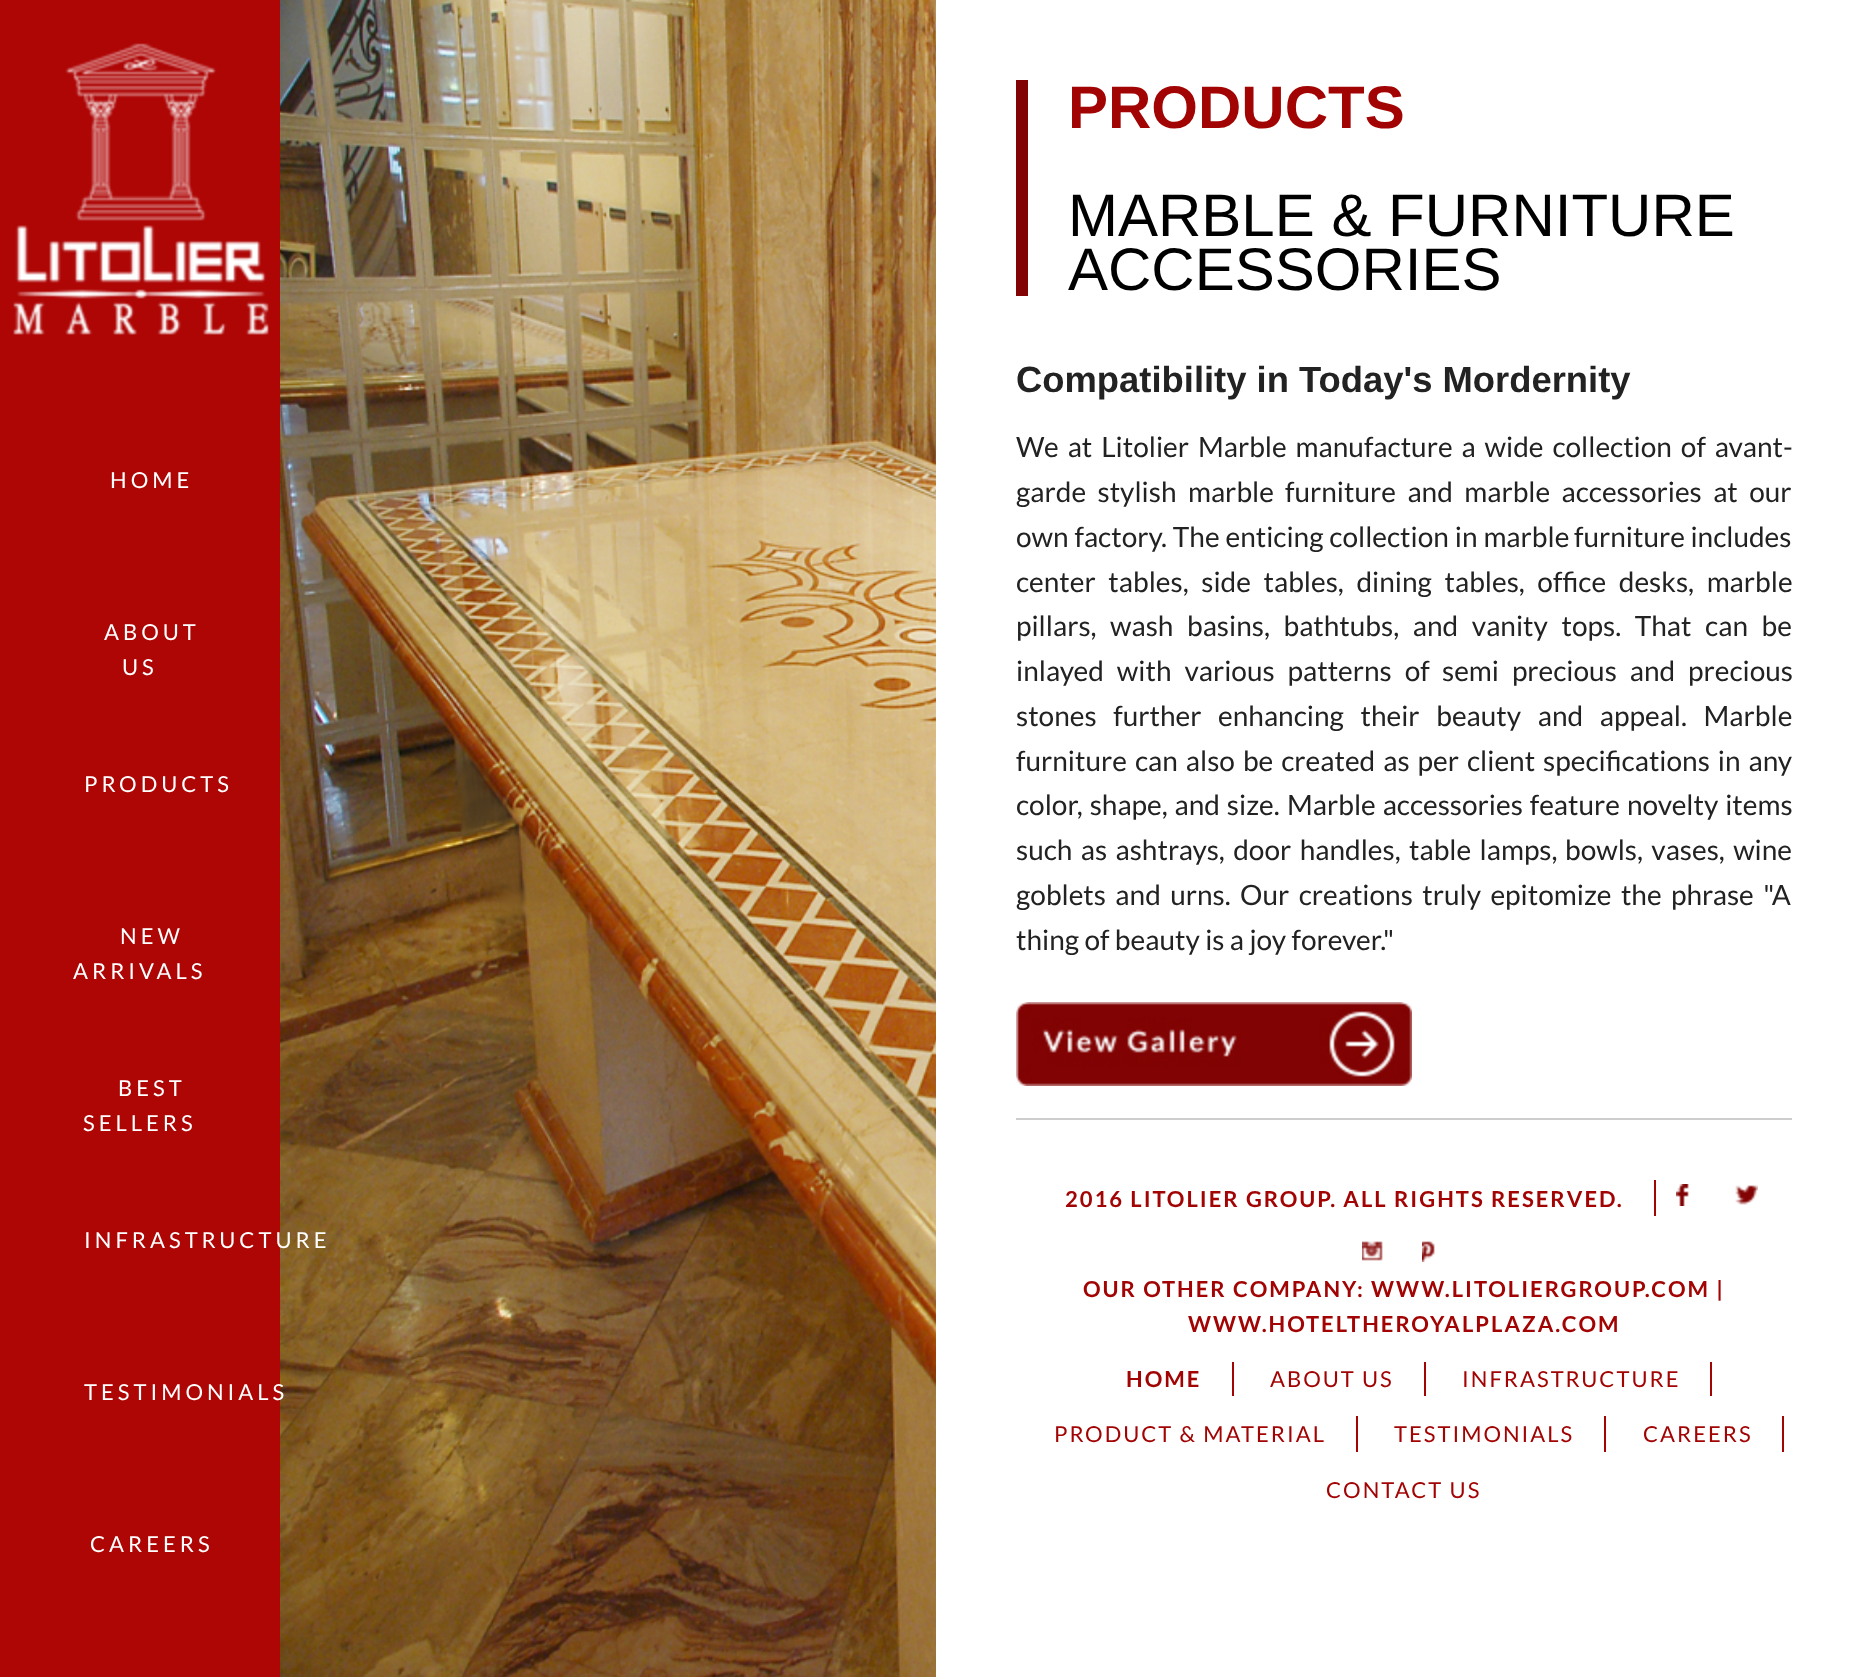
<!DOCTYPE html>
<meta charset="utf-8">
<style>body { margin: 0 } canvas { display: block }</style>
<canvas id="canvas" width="1872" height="1677"></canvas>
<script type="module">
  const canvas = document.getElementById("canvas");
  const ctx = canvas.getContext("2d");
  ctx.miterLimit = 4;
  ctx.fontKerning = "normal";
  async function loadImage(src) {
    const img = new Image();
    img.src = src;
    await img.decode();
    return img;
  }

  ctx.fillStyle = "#ffffff";
  ctx.fillRect(0, 0, 1872, 1677);
  ctx.fillStyle = "#ae0505";
  ctx.fillRect(0, 0, 280, 1677);
  ctx.drawImage(await loadImage("img1.png"), 13, 43, 256, 292);
  ctx.letterSpacing = "4px";
  ctx.font = "22px Lato";
  ctx.fillStyle = "#ffffff";
  ctx.fillText("HOME", 110, 488);
  ctx.fillText("ABOUT", 104, 640);
  ctx.fillText("US", 122, 675);
  ctx.fillText("PRODUCTS", 84, 792);
  ctx.fillText("NEW", 120, 944);
  ctx.fillText("ARRIVALS", 73, 979);
  ctx.fillText("BEST", 118, 1096);
  ctx.fillText("SELLERS", 83, 1131);
  ctx.drawImage(await loadImage("img2.png"), 280, 0, 656, 1677);
  ctx.fillText("INFRASTRUCTURE", 84, 1248);
  ctx.fillText("TESTIMONIALS", 84, 1400);
  ctx.fillText("CAREERS", 90, 1552);
  ctx.fillStyle = "#810303";
  ctx.fillRect(1016, 80, 12, 216);
  ctx.letterSpacing = "0px";
  ctx.font = "bold 60px Liberation Sans";
  ctx.fillStyle = "#a20404";
  ctx.fillText("PRODUCTS", 1068, 128);
  ctx.font = "60px Liberation Sans";
  ctx.fillStyle = "#000000";
  ctx.fillText("MARBLE & FURNITURE", 1068, 236);
  ctx.fillText("ACCESSORIES", 1068, 290);
  ctx.font = "bold 36.4px Liberation Sans";
  ctx.fillStyle = "#222222";
  ctx.fillText("Compatibility in Today's Mordernity", 1016, 392);
  ctx.wordSpacing = "3.5px";
  ctx.font = "28px Lato";
  ctx.fillText("We at Litolier Marble manufacture a wide collection of avant-", 1016, 457);
  ctx.wordSpacing = "6px";
  ctx.fillText("garde stylish marble", 1016, 502);
  ctx.fillText("furniture and marble accessories at our", 1285, 502);
  ctx.wordSpacing = "0.5px";
  ctx.fillText("own factory. The enticing collection in marble", 1016, 547);
  ctx.wordSpacing = "0px";
  ctx.fillText("furniture includes", 1574, 547);
  ctx.wordSpacing = "7.25px";
  ctx.fillText("center tables, side tables, dining tables, office desks, marble", 1016, 592);
  ctx.wordSpacing = "0px";
  ctx.fillText("pillars,", 1016, 636);
  ctx.wordSpacing = "8.25px";
  ctx.fillText("wash basins, bathtubs, and vanity tops. That can be", 1110, 636);
  ctx.wordSpacing = "7.5px";
  ctx.fillText("inlayed with various patterns of", 1016, 681);
  ctx.fillText("semi precious and precious", 1442, 681);
  ctx.wordSpacing = "11.25px";
  ctx.fillText("stones further enhancing their beauty and appeal. Marble", 1016, 726);
  ctx.wordSpacing = "2.6px";
  ctx.fillText("furniture can also be created as per client specifications in any", 1016, 771);
  ctx.wordSpacing = "1.5px";
  ctx.fillText("color, shape, and size.", 1016, 815);
  ctx.fillText("Marble accessories feature novelty items", 1287, 815);
  ctx.wordSpacing = "3px";
  ctx.fillText("such as ashtrays, door handles, table lamps,", 1016, 860);
  ctx.fillText("bowls, vases, wine", 1565, 860);
  ctx.wordSpacing = "4px";
  ctx.fillText("goblets and urns. Our creations truly epitomize the phrase \"A", 1016, 905);
  ctx.wordSpacing = "0px";
  ctx.fillText("thing of beauty is a joy forever.\"", 1016, 950);
  ctx.drawImage(await loadImage("img3.png"), 1016, 1002, 396, 84);
  ctx.fillStyle = "#cdcdcd";
  ctx.fillRect(1016, 1118, 776, 2);
  ctx.fillStyle = "#a20404";
  ctx.fillRect(1654, 1180, 2, 36);
  ctx.letterSpacing = "2px";
  ctx.font = "bold 22px Lato";
  ctx.fillText("2016 LITOLIER GROUP. ALL RIGHTS RESERVED.", 1065, 1207);
  ctx.drawImage(await loadImage("img4.png"), 1676, 1184, 13, 22);
  ctx.drawImage(await loadImage("img5.png"), 1735, 1185, 23, 20);
  ctx.drawImage(await loadImage("img6.png"), 1362, 1241, 21, 20);
  ctx.drawImage(await loadImage("img7.png"), 1422, 1241, 13, 21);
  ctx.fillText("OUR OTHER COMPANY: WWW.LITOLIERGROUP.COM |", 1083, 1297);
  ctx.fillText("WWW.HOTELTHEROYALPLAZA.COM", 1188, 1332);
  ctx.fillRect(1232, 1362, 2, 34);
  ctx.fillText("HOME", 1126, 1387);
  ctx.fillRect(1424, 1362, 2, 34);
  ctx.font = "22px Lato";
  ctx.fillText("ABOUT US", 1270, 1387);
  ctx.fillRect(1710, 1362, 2, 34);
  ctx.fillText("INFRASTRUCTURE", 1462, 1387);
  ctx.fillRect(1356, 1416, 2, 36);
  ctx.fillText("PRODUCT & MATERIAL", 1054, 1442);
  ctx.fillRect(1604, 1416, 2, 36);
  ctx.fillText("TESTIMONIALS", 1394, 1442);
  ctx.fillRect(1782, 1416, 2, 36);
  ctx.fillText("CAREERS", 1643, 1442);
  ctx.fillText("CONTACT US", 1326, 1498);
</script>
